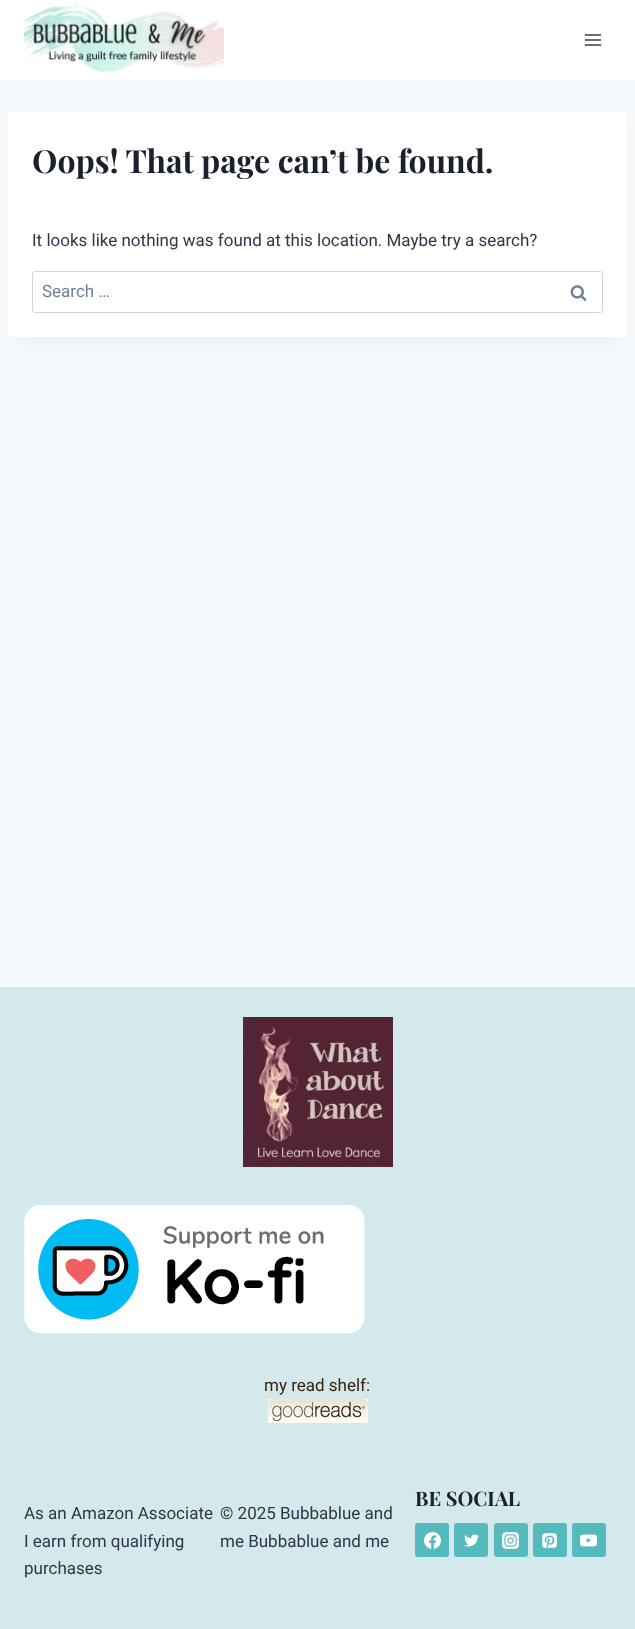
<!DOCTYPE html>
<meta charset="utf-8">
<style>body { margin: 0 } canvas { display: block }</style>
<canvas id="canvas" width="635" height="1629"></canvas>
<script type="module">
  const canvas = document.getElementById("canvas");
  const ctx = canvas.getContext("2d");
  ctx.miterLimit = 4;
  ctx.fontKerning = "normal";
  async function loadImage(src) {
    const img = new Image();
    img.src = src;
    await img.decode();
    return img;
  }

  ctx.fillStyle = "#f7fafc";
  ctx.fillRect(0, 0, 635, 1629);
  ctx.fillStyle = "#ffffff";
  ctx.fillRect(0, 0, 635, 80);
  ctx.drawImage(await loadImage("img1.png"), 24, 3, 200, 70);
  ctx.drawImage(await loadImage("img2.png"), 584, 34, 18, 12);
  ctx.fillStyle = "rgba(0, 0, 0, 0.05)";
  ctx.filter = "blur(12.5px)";
  ctx.beginPath();
  ctx.rect(18, 137, 599, 205);
  ctx.fill();
  ctx.filter = "none";
  ctx.fillStyle = "#ffffff";
  ctx.beginPath();
  ctx.roundRect(8, 112, 619, 225, 4);
  ctx.fill();
  ctx.font = "bold 32px Playfair Display";
  ctx.fillStyle = "#1a202c";
  ctx.fillText("Oops! That page can’t be found.", 32, 173);
  ctx.font = "17px Roboto";
  ctx.fillStyle = "#2d3748";
  ctx.fillText("It looks like nothing was found at this location. Maybe try a search?", 32, 246);
  ctx.beginPath();
  ctx.roundRect(32.5, 271.5, 570, 41, 2.5);
  ctx.strokeStyle = "#cbd5e0";
  ctx.stroke();
  ctx.fillStyle = "#718096";
  ctx.fillText("Search …", 42, 297);
  ctx.drawImage(await loadImage("img3.png"), 570, 285, 17, 16);
  ctx.fillStyle = "#d4e9eb";
  ctx.fillRect(0, 987, 635, 642);
  ctx.drawImage(await loadImage("img4.png"), 243, 1017, 150, 150);
  ctx.drawImage(await loadImage("img5.png"), 24, 1205, 341, 129);
  ctx.fillStyle = "#382110";
  ctx.fillText("my read shelf:", 264, 1391);
  ctx.drawImage(await loadImage("img6.png"), 268, 1399, 100, 24);
  ctx.font = "bold 20px Playfair Display";
  ctx.fillStyle = "#1a202c";
  ctx.fillText("BE SOCIAL", 415, 1506);
  ctx.fillStyle = "#55babe";
  ctx.beginPath();
  ctx.roundRect(415, 1523, 34, 34, 3);
  ctx.fill();
  ctx.drawImage(await loadImage("img7.png"), 424, 1532, 17, 17);
  ctx.beginPath();
  ctx.roundRect(454, 1523, 34, 34, 3);
  ctx.fill();
  ctx.drawImage(await loadImage("img8.png"), 464, 1534, 15, 13);
  ctx.beginPath();
  ctx.roundRect(494, 1523, 34, 34, 3);
  ctx.fill();
  ctx.drawImage(await loadImage("img9.png"), 502, 1532, 17, 17);
  ctx.beginPath();
  ctx.roundRect(533, 1523, 34, 34, 3);
  ctx.fill();
  ctx.drawImage(await loadImage("img10.png"), 542, 1533, 15, 15);
  ctx.beginPath();
  ctx.roundRect(572, 1523, 34, 34, 3);
  ctx.fill();
  ctx.drawImage(await loadImage("img11.png"), 580, 1534, 17, 13);
  ctx.font = "17px Roboto";
  ctx.fillStyle = "#2d3748";
  ctx.fillText("As an Amazon Associate", 24, 1519);
  ctx.fillText("I earn from qualifying", 24, 1547);
  ctx.fillText("purchases", 24, 1574);
  ctx.fillText("© 2025 Bubbablue and", 220, 1519);
  ctx.fillText("me Bubbablue and me", 220, 1547);
</script>
